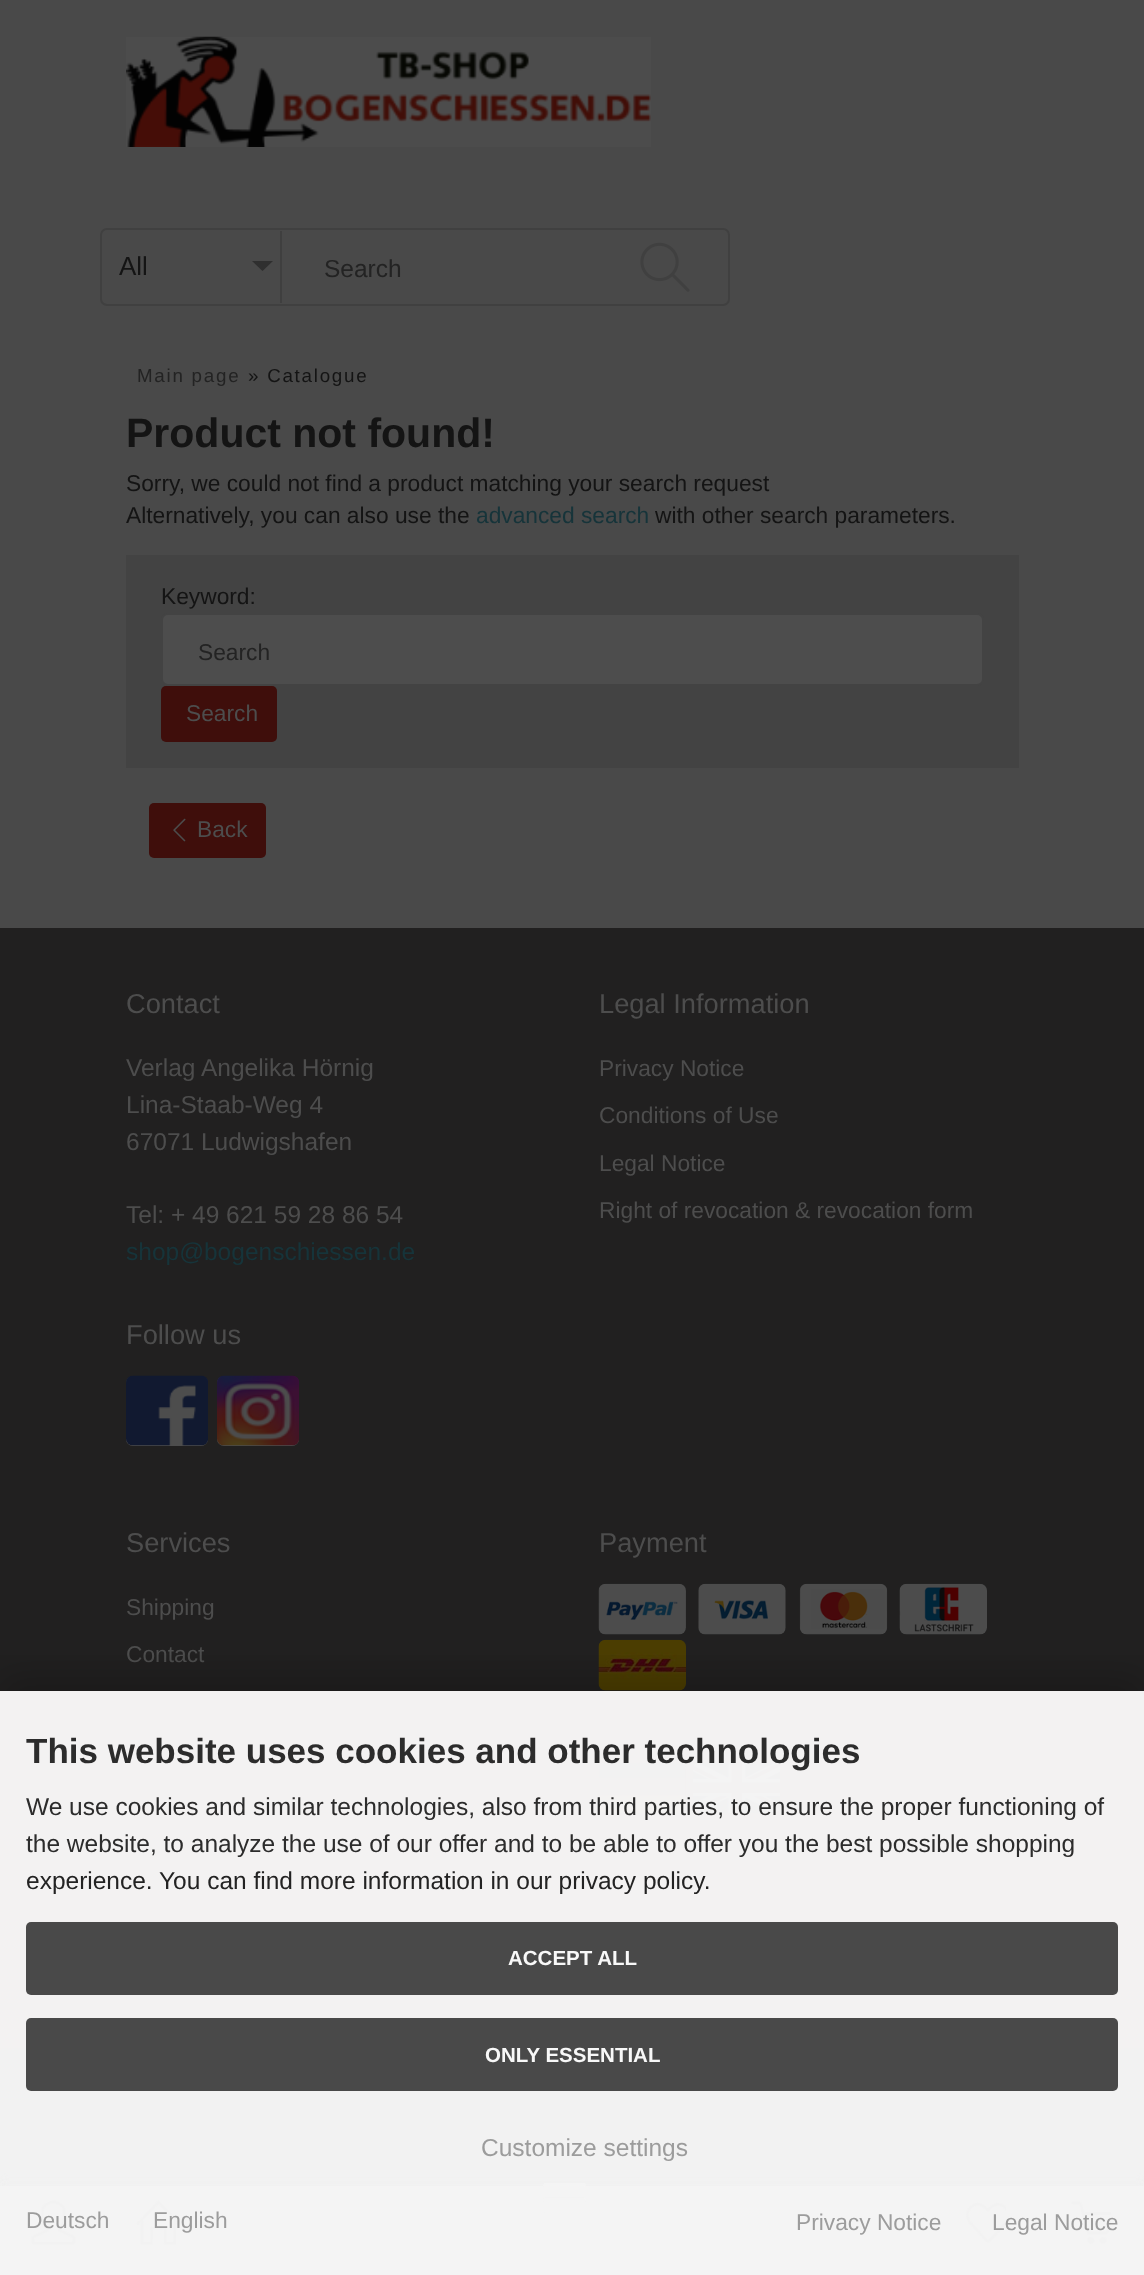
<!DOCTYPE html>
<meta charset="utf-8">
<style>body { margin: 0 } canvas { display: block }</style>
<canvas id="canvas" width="1144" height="2275"></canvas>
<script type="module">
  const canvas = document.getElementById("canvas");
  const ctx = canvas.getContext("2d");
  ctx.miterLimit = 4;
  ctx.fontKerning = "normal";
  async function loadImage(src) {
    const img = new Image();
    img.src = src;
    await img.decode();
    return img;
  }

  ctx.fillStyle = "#494949";
  ctx.fillRect(0, 0, 1144, 2275);
  ctx.drawImage(await loadImage("img1.png"), 126, 36, 525, 111);
  ctx.beginPath();
  ctx.roundRect(101, 229, 628, 76, 6);
  ctx.strokeStyle = "#404040";
  ctx.lineWidth = 2;
  ctx.stroke();
  ctx.fillStyle = "#3f3f3f";
  ctx.fillRect(280, 231, 2, 72);
  ctx.font = "26px Liberation Sans";
  ctx.fillStyle = "#141414";
  ctx.fillText("All", 119, 275);
  ctx.fillStyle = "#2f2f2f";
  ctx.beginPath();
  ctx.moveTo(252, 261);
  ctx.lineTo(273, 261);
  ctx.lineTo(262.5, 271);
  ctx.closePath();
  ctx.fill();
  ctx.font = "24.5px Liberation Sans";
  ctx.fillStyle = "#232323";
  ctx.fillText("Search", 324, 277);
  ctx.drawImage(await loadImage("img2.png"), 640, 242, 50, 50);
  ctx.letterSpacing = "1.75px";
  ctx.font = "18.75px Liberation Sans";
  ctx.fillText("Main page", 137, 382);
  ctx.fillStyle = "#141414";
  ctx.fillText("» Catalogue", 248, 382);
  ctx.letterSpacing = "0px";
  ctx.font = "bold 41px Liberation Sans";
  ctx.fillText("Product not found!", 126, 447);
  ctx.font = "22.75px Liberation Sans";
  ctx.fillText("Sorry, we could not find a product matching your search request", 126, 491);
  ctx.fillText("Alternatively, you can also use the", 126, 523);
  ctx.fillStyle = "#16343a";
  ctx.fillText("advanced search", 476, 523);
  ctx.fillStyle = "#141414";
  ctx.fillText("with other search parameters.", 655, 523);
  ctx.fillStyle = "#434343";
  ctx.fillRect(126, 555, 893, 213);
  ctx.fillStyle = "#141414";
  ctx.fillText("Keyword:", 161, 604);
  ctx.fillStyle = "#4d4d4d";
  ctx.beginPath();
  ctx.roundRect(161, 613, 823, 73, 7);
  ctx.fill();
  ctx.beginPath();
  ctx.roundRect(162, 614, 821, 71, 6);
  ctx.strokeStyle = "rgba(0, 0, 0, 0.12)";
  ctx.stroke();
  ctx.fillStyle = "#232323";
  ctx.fillText("Search", 198, 660);
  ctx.fillStyle = "#3f0e0b";
  ctx.beginPath();
  ctx.roundRect(161, 686, 116, 56, 5);
  ctx.fill();
  ctx.fillStyle = "#4d4d4d";
  ctx.fillText("Search", 186, 721);
  ctx.fillStyle = "#3f0e0b";
  ctx.beginPath();
  ctx.roundRect(149, 803, 117, 55, 5);
  ctx.fill();
  ctx.drawImage(await loadImage("img3.png"), 173, 818, 13, 24);
  ctx.fillStyle = "#4d4d4d";
  ctx.fillText("Back", 197, 837);
  ctx.fillStyle = "#212020";
  ctx.fillRect(0, 928, 1144, 763);
  ctx.fillStyle = "#f3f2f2";
  ctx.fillRect(0, 1691, 1144, 357);
  ctx.font = "27.25px Liberation Sans";
  ctx.fillStyle = "#4d4d4d";
  ctx.fillText("Contact", 126, 1013);
  ctx.font = "24.5px Liberation Sans";
  ctx.fillText("Verlag Angelika Hörnig", 126, 1076);
  ctx.fillText("Lina-Staab-Weg 4", 126, 1113);
  ctx.fillText("67071 Ludwigshafen", 126, 1150);
  ctx.fillText("Tel: + 49 621 59 28 86 54", 126, 1223);
  ctx.fillStyle = "#16343a";
  ctx.fillText("shop@bogenschiessen.de", 126, 1260);
  ctx.font = "27.25px Liberation Sans";
  ctx.fillStyle = "#4d4d4d";
  ctx.fillText("Follow us", 126, 1344);
  ctx.beginPath();
  ctx.roundRect(126, 1376, 82, 70, 7);
  ctx.fill();
  ctx.drawImage(await loadImage("img4.png"), 126, 1375, 82, 71);
  ctx.beginPath();
  ctx.roundRect(217, 1376, 82, 70, 7);
  ctx.fill();
  ctx.drawImage(await loadImage("img5.png"), 217, 1375, 83, 71);
  ctx.fillText("Legal Information", 599, 1013);
  ctx.font = "22.75px Liberation Sans";
  ctx.fillText("Privacy Notice", 599, 1076);
  ctx.fillText("Conditions of Use", 599, 1123);
  ctx.fillText("Legal Notice", 599, 1171);
  ctx.fillText("Right of revocation & revocation form", 599, 1218);
  ctx.font = "27.25px Liberation Sans";
  ctx.fillText("Services", 126, 1552);
  ctx.font = "22.75px Liberation Sans";
  ctx.fillText("Shipping", 126, 1615);
  ctx.fillText("Contact", 126, 1662);
  ctx.font = "27.25px Liberation Sans";
  ctx.fillText("Payment", 599, 1552);
  ctx.drawImage(await loadImage("img6.png"), 598, 1583, 88, 52);
  ctx.drawImage(await loadImage("img7.png"), 698, 1583, 88, 52);
  ctx.drawImage(await loadImage("img8.png"), 799, 1583, 89, 52);
  ctx.drawImage(await loadImage("img9.png"), 899, 1583, 88, 52);
  ctx.drawImage(await loadImage("img10.png"), 598, 1639, 88, 52);
  ctx.drawImage(await loadImage("img11.png"), 598, 1762, 88, 51);
  ctx.drawImage(await loadImage("img12.png"), 693, 1762, 88, 51);
  ctx.fillStyle = "#f2f2f2";
  ctx.fillRect(0, 2048, 1144, 138);
  ctx.fillStyle = "rgba(242, 242, 242, 0.2)";
  ctx.filter = "blur(4.5px)";
  ctx.beginPath();
  ctx.rect(0, 2181, 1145, 89);
  ctx.fill();
  ctx.filter = "none";
  ctx.fillStyle = "#f4f4f4";
  ctx.fillRect(0, 2186, 1144, 89);
  ctx.drawImage(await loadImage("img13.png"), 31, 2200, 45, 45);
  ctx.drawImage(await loadImage("img14.png"), 136, 2200, 45, 45);
  ctx.drawImage(await loadImage("img15.png"), 543, 2183, 43, 34);
  ctx.drawImage(await loadImage("img16.png"), 966, 2202, 40, 41);
  ctx.drawImage(await loadImage("img17.png"), 1071, 2201, 40, 43);
  ctx.save();
  ctx.beginPath();
  ctx.rect(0, 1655, 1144, 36);
  ctx.clip();
  ctx.fillStyle = "rgba(0, 0, 0, 0.19)";
  ctx.filter = "blur(17.5px)";
  ctx.beginPath();
  ctx.rect(0, 1677, 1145, 584);
  ctx.fill();
  ctx.filter = "none";
  ctx.restore();
  ctx.font = "bold 35px Liberation Sans";
  ctx.fillStyle = "#2c2c2c";
  ctx.fillText("This website uses cookies and other technologies", 26, 1763);
  ctx.font = "24.5px Liberation Sans";
  ctx.fillText("We use cookies and similar technologies, also from third parties, to ensure the proper functioning of", 26, 1815);
  ctx.fillText("the website, to analyze the use of our offer and to be able to offer you the best possible shopping", 26, 1852);
  ctx.fillStyle = "#232323";
  ctx.fillText("experience. You can find more information in our privacy policy.", 26, 1889);
  ctx.fillStyle = "#494949";
  ctx.beginPath();
  ctx.roundRect(26, 1922, 1092, 73, 5);
  ctx.fill();
  ctx.font = "bold 20.5px Liberation Sans";
  ctx.fillStyle = "#f8f8f8";
  ctx.fillText("ACCEPT ALL", 508, 1965);
  ctx.fillStyle = "#494949";
  ctx.beginPath();
  ctx.roundRect(26, 2018, 1092, 73, 5);
  ctx.fill();
  ctx.fillStyle = "#f8f8f8";
  ctx.fillText("ONLY ESSENTIAL", 485, 2062);
  ctx.font = "24.5px Liberation Sans";
  ctx.fillStyle = "#9c9c9c";
  ctx.fillText("Customize settings", 481, 2156);
  ctx.font = "22.75px Liberation Sans";
  ctx.fillText("Deutsch", 26, 2228);
  ctx.fillText("English", 153, 2228);
  ctx.fillText("Privacy Notice", 796, 2230);
  ctx.fillText("Legal Notice", 992, 2230);
</script>
